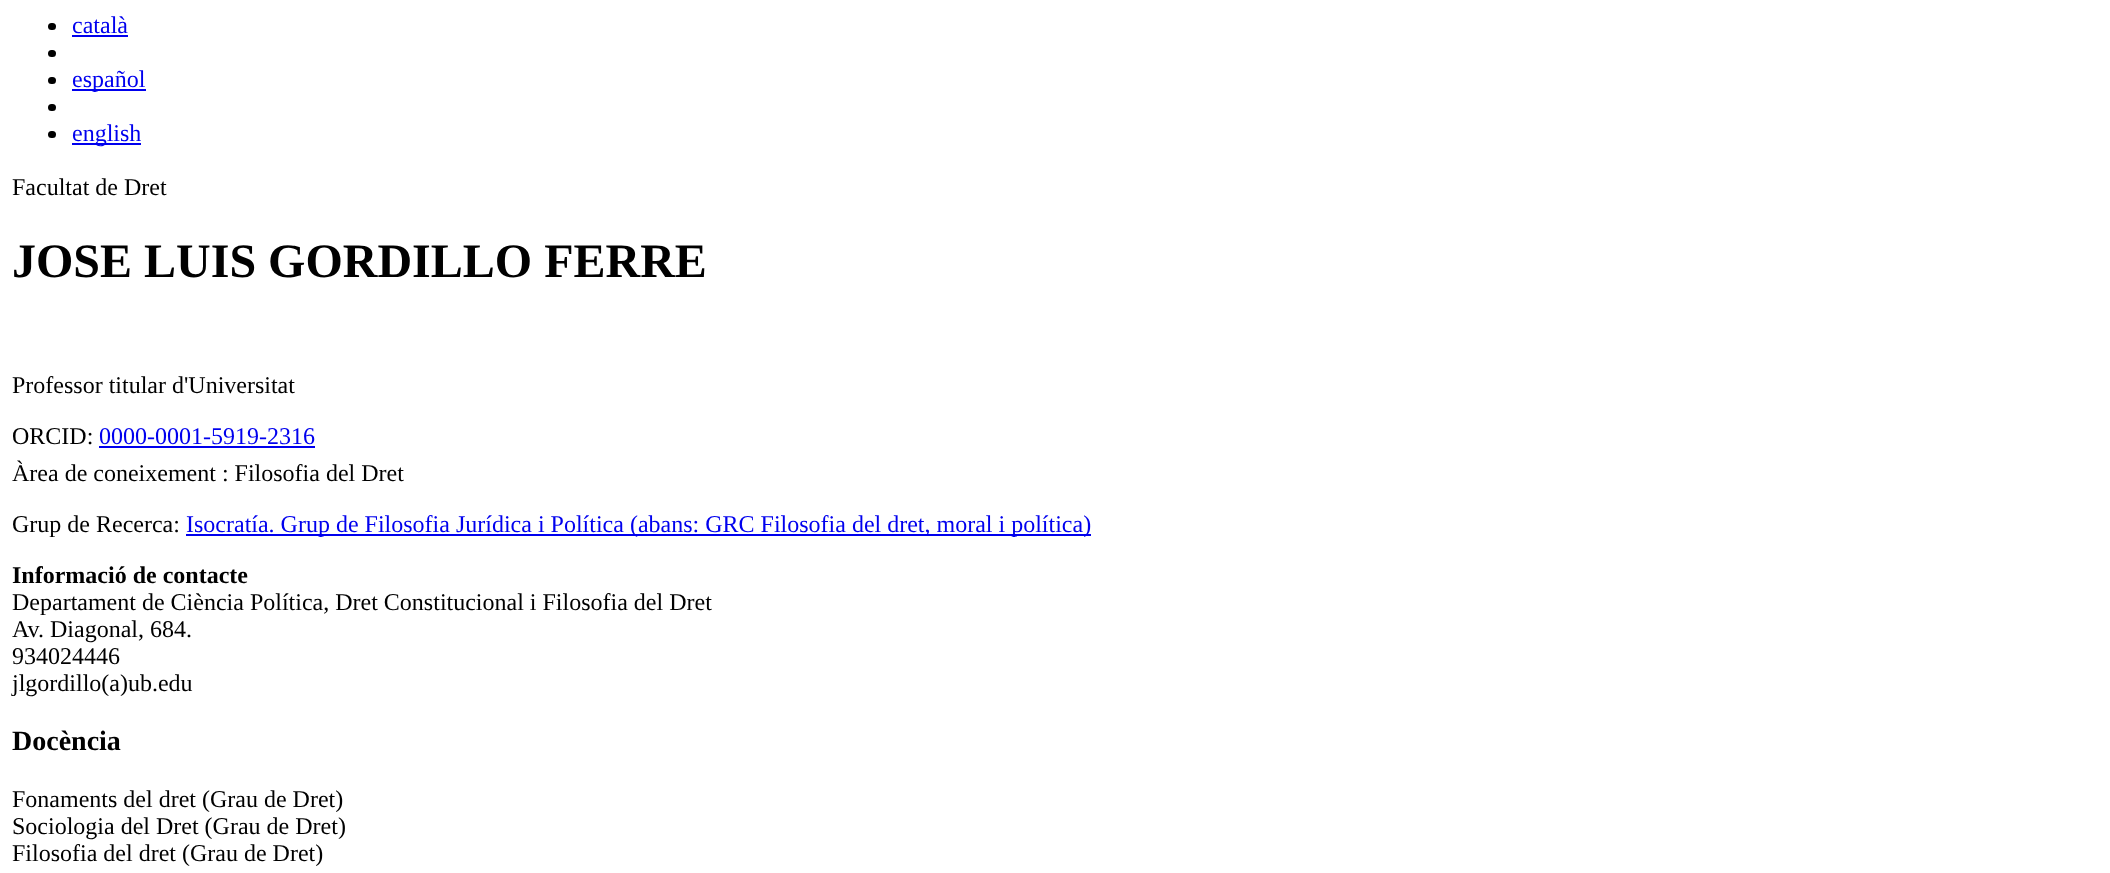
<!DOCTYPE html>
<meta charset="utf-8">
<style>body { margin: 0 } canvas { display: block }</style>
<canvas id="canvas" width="2110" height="873"></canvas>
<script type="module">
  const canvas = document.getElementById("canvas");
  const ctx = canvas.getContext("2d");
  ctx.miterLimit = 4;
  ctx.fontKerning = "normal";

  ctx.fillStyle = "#ffffff";
  ctx.fillRect(0, 0, 2110, 873);
  ctx.fillStyle = "#000000";
  ctx.beginPath();
  ctx.roundRect(48, 23, 8, 7, 3.5);
  ctx.fill();
  ctx.font = "24px Liberation Serif";
  ctx.fillStyle = "#0000ee";
  ctx.fillText("català", 72, 33);
  ctx.fillRect(72, 35, 56, 2);
  ctx.fillStyle = "#000000";
  ctx.beginPath();
  ctx.roundRect(48, 50, 8, 7, 3.5);
  ctx.fill();
  ctx.beginPath();
  ctx.roundRect(48, 77, 8, 7, 3.5);
  ctx.fill();
  ctx.fillStyle = "#0000ee";
  ctx.fillRect(72, 89, 74, 2);
  ctx.fillText("español", 72, 87);
  ctx.fillStyle = "#000000";
  ctx.beginPath();
  ctx.roundRect(48, 104, 8, 7, 3.5);
  ctx.fill();
  ctx.beginPath();
  ctx.roundRect(48, 131, 8, 7, 3.5);
  ctx.fill();
  ctx.fillStyle = "#0000ee";
  ctx.fillRect(72, 143, 69, 2);
  ctx.fillText("english", 72, 141);
  ctx.fillStyle = "#000000";
  ctx.fillText("Facultat de Dret", 12, 195);
  ctx.font = "bold 48px Liberation Serif";
  ctx.fillText("JOSE LUIS GORDILLO FERRE", 12, 277);
  ctx.font = "24px Liberation Serif";
  ctx.fillText("Professor titular d'Universitat", 12, 393);
  ctx.fillText("ORCID:", 12, 444);
  ctx.fillStyle = "#0000ee";
  ctx.fillText("0000-0001-5919-2316", 99, 444);
  ctx.fillRect(99, 446, 216, 2);
  ctx.fillStyle = "#000000";
  ctx.fillText("Àrea de coneixement : Filosofia del Dret", 12, 481);
  ctx.fillText("Grup de Recerca:", 12, 532);
  ctx.fillStyle = "#0000ee";
  ctx.fillRect(186, 534, 905, 2);
  ctx.fillText("Isocratía. Grup de Filosofia Jurídica i Política (abans: GRC Filosofia del dret, moral i política)", 186, 532);
  ctx.font = "bold 24px Liberation Serif";
  ctx.fillStyle = "#000000";
  ctx.fillText("Informació de contacte", 12, 583);
  ctx.font = "24px Liberation Serif";
  ctx.fillText("Departament de Ciència Política, Dret Constitucional i Filosofia del Dret", 12, 610);
  ctx.fillText("Av. Diagonal, 684.", 12, 637);
  ctx.fillText("934024446", 12, 664);
  ctx.fillText("jlgordillo(a)ub.edu", 12, 691);
  ctx.font = "bold 28px Liberation Serif";
  ctx.fillText("Docència", 12, 750);
  ctx.font = "24px Liberation Serif";
  ctx.fillText("Fonaments del dret (Grau de Dret)", 12, 807);
  ctx.fillText("Sociologia del Dret (Grau de Dret)", 12, 834);
  ctx.fillText("Filosofia del dret (Grau de Dret)", 12, 861);
</script>
